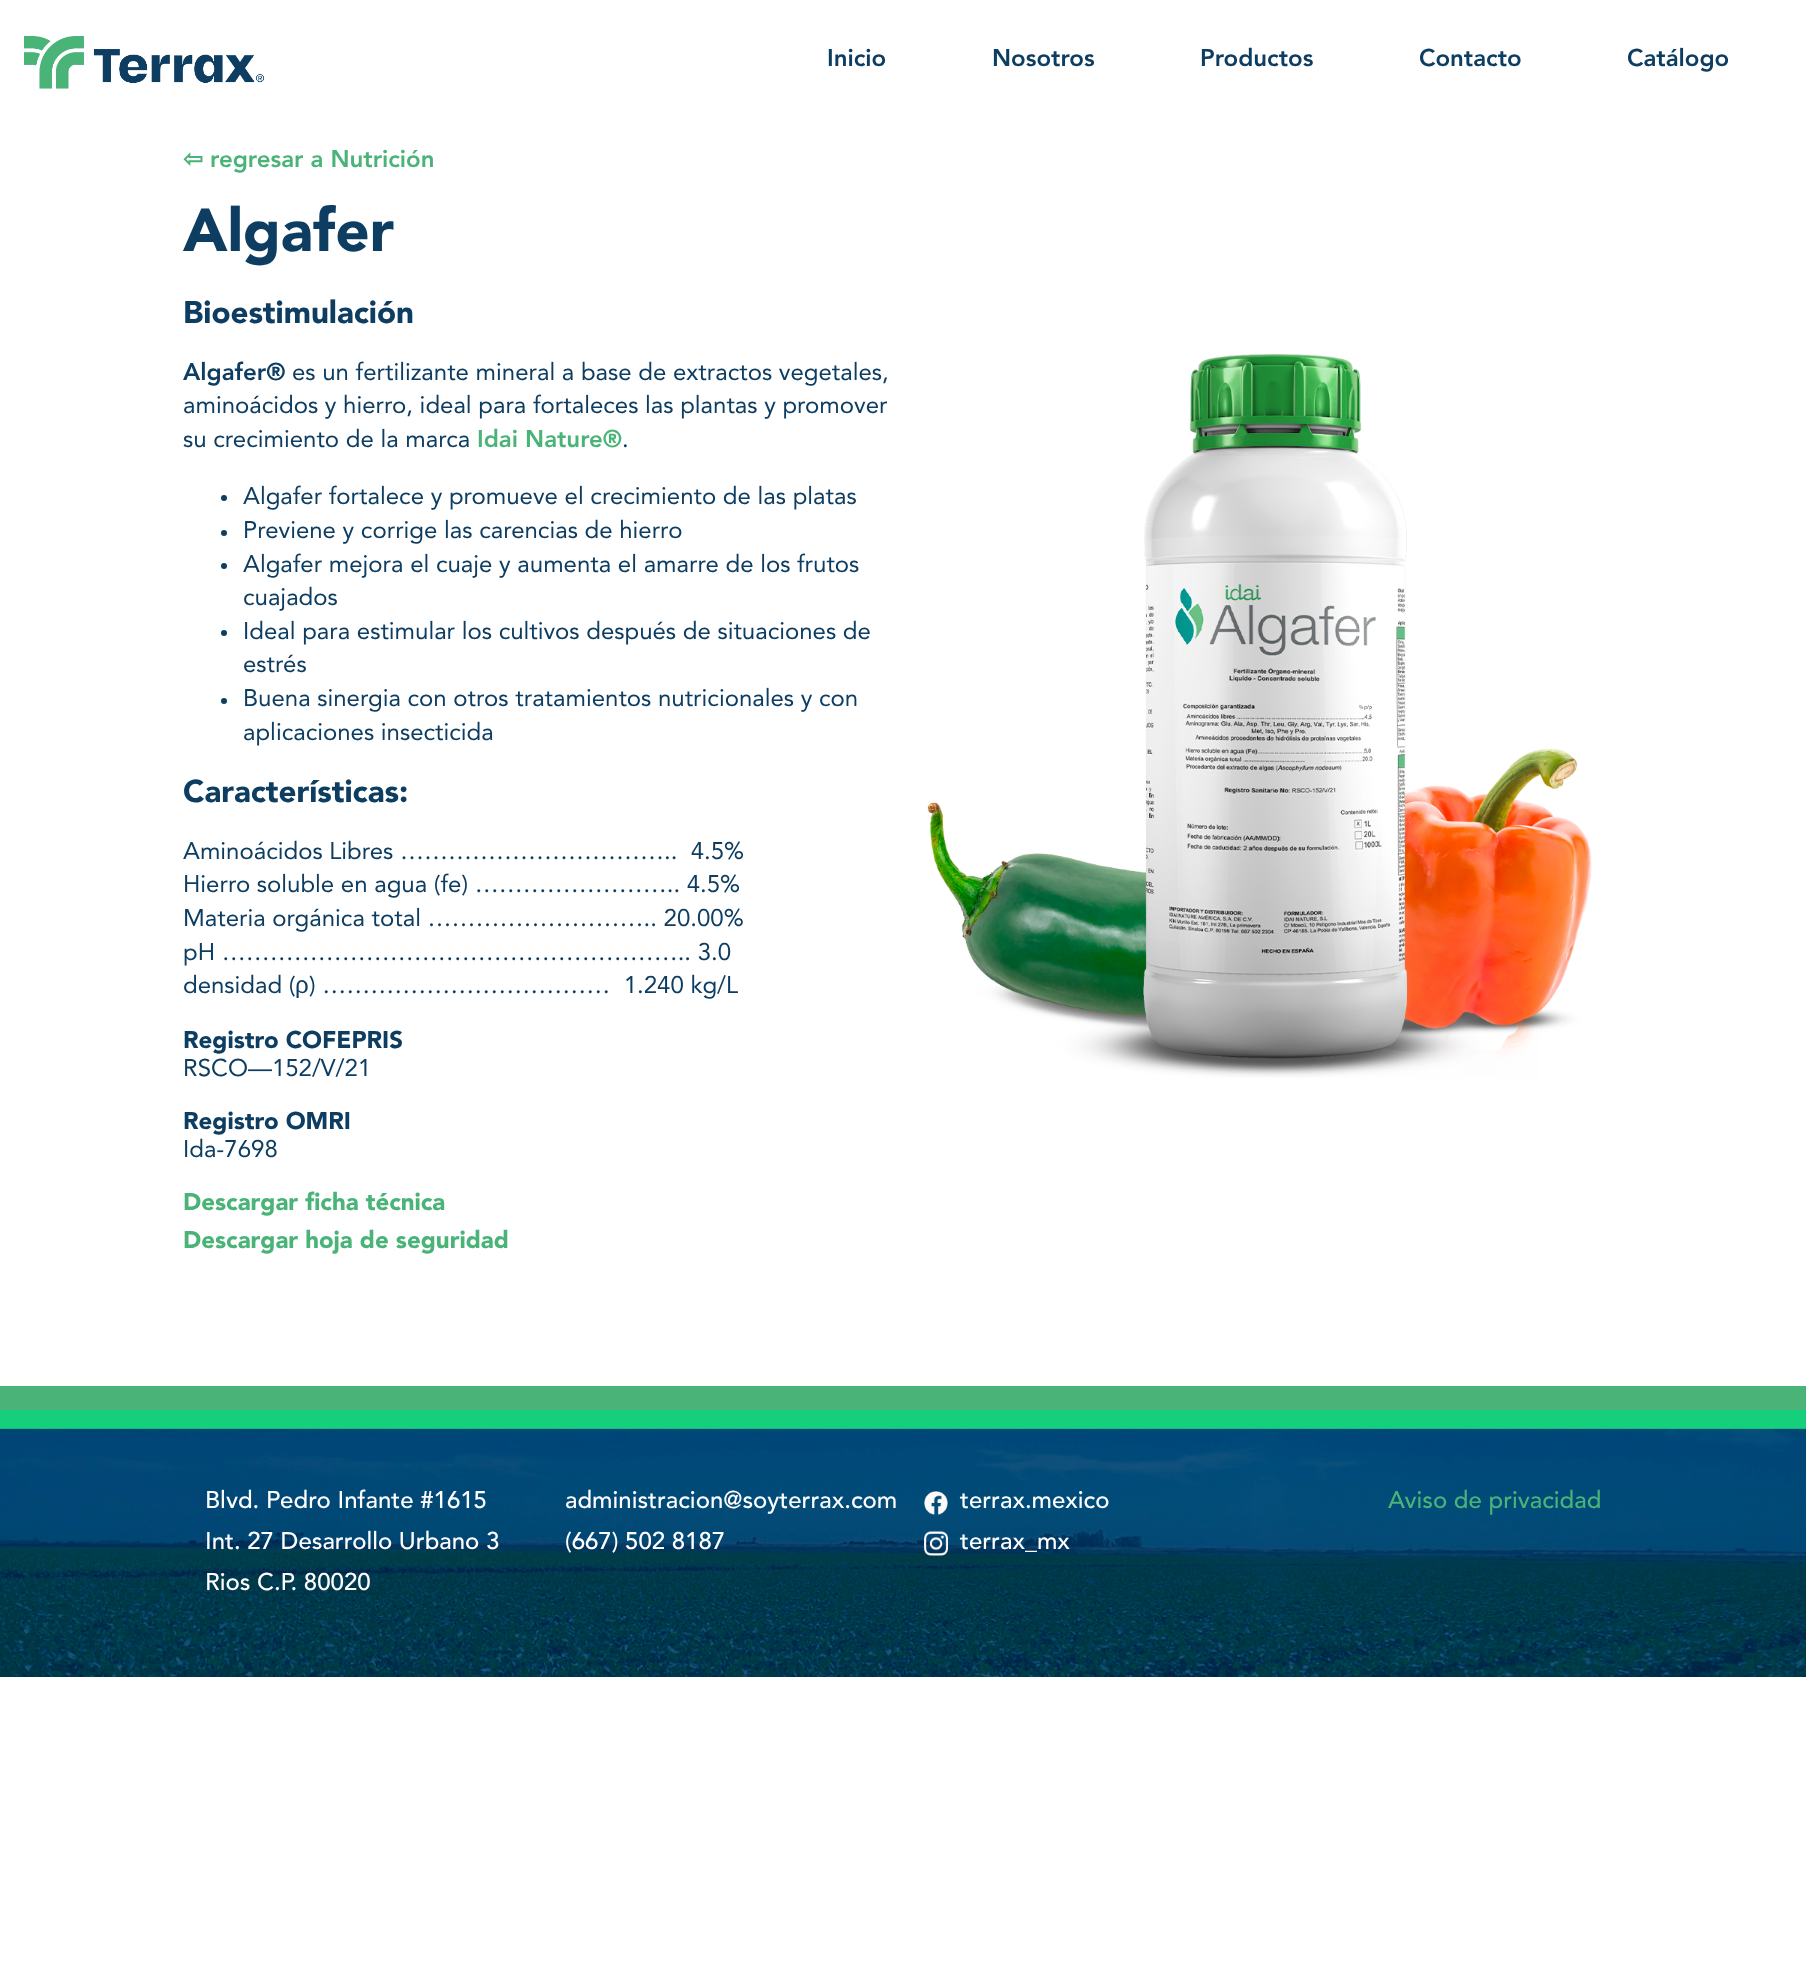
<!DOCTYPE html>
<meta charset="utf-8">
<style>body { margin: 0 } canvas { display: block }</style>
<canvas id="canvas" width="1806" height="1964"></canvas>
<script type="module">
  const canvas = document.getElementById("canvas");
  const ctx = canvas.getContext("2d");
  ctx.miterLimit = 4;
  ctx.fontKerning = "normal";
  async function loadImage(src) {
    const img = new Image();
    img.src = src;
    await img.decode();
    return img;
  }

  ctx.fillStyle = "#ffffff";
  ctx.fillRect(0, 0, 1806, 1964);
  ctx.drawImage(await loadImage("img1.png"), 24, 36, 240, 53);
  ctx.font = "900 24px Avenir";
  ctx.fillStyle = "#0e3d62";
  ctx.fillText("Inicio", 827, 66);
  ctx.fillText("Nosotros", 992, 66);
  ctx.fillText("Productos", 1200, 66);
  ctx.fillText("Contacto", 1419, 66);
  ctx.fillText("Catálogo", 1627, 66);
  ctx.font = "bold 24px DejaVu Sans";
  ctx.fillStyle = "#4ab377";
  ctx.fillText("⇦", 183, 167);
  ctx.font = "900 24px Avenir";
  ctx.fillText("regresar a Nutrición", 210, 167);
  ctx.font = "900 60px 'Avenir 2'";
  ctx.fillStyle = "#0e3d62";
  ctx.fillText("Algafer", 183, 251);
  ctx.font = "900 31.25px 'Avenir 2'";
  ctx.fillText("Bioestimulación", 183, 323);
  ctx.font = "900 24px Avenir";
  ctx.fillText("Algafer®", 183, 380);
  ctx.font = "24px Avenir";
  ctx.fillText("es un fertilizante mineral a base de extractos vegetales,", 292, 380);
  ctx.fillText("aminoácidos y hierro, ideal para fortaleces las plantas y promover", 183, 413);
  ctx.fillText("su crecimiento de la marca", 183, 447);
  ctx.font = "900 24px Avenir";
  ctx.fillStyle = "#4ab377";
  ctx.fillText("Idai Nature®", 477, 447);
  ctx.font = "24px Avenir";
  ctx.fillStyle = "#0e3d62";
  ctx.fillText(".", 622, 447);
  ctx.beginPath();
  ctx.arc(224, 498, 3, 0, Math.PI * 2);
  ctx.fill();
  ctx.fillText("Algafer fortalece y promueve el crecimiento de las platas", 243, 504);
  ctx.beginPath();
  ctx.arc(224, 533, 3, 0, Math.PI * 2);
  ctx.fill();
  ctx.fillText("Previene y corrige las carencias de hierro", 243, 538);
  ctx.beginPath();
  ctx.arc(224, 566, 3, 0, Math.PI * 2);
  ctx.fill();
  ctx.fillText("Algafer mejora el cuaje y aumenta el amarre de los frutos", 243, 572);
  ctx.fillText("cuajados", 243, 605);
  ctx.beginPath();
  ctx.arc(224, 633, 3, 0, Math.PI * 2);
  ctx.fill();
  ctx.fillText("Ideal para estimular los cultivos después de situaciones de", 243, 639);
  ctx.fillText("estrés", 243, 672);
  ctx.beginPath();
  ctx.arc(224, 701, 3, 0, Math.PI * 2);
  ctx.fill();
  ctx.fillText("Buena sinergia con otros tratamientos nutricionales y con", 243, 706);
  ctx.fillText("aplicaciones insecticida", 243, 740);
  ctx.font = "900 31.25px 'Avenir 2'";
  ctx.fillText("Características:", 183, 802);
  ctx.font = "24px Avenir";
  ctx.fillText("Aminoácidos Libres ……………………………..  4.5%", 183, 859);
  ctx.fillText("Hierro soluble en agua (fe) …………………….. 4.5%", 183, 892);
  ctx.fillText("Materia orgánica total ……………………….. 20.00%", 183, 926);
  ctx.fillText("pH ………………………………………………….. 3.0", 183, 960);
  ctx.fillText("densidad (", 183, 993);
  ctx.font = "24px Liberation Sans";
  ctx.fillText("ρ", 295, 993);
  ctx.font = "24px Avenir";
  ctx.fillText(") ………………………………  1.240 kg/L", 309, 993);
  ctx.font = "900 24px 'Avenir 2'";
  ctx.fillText("Registro COFEPRIS", 183, 1048);
  ctx.font = "24px Avenir";
  ctx.fillText("RSCO—152/V/21", 183, 1076);
  ctx.font = "900 24px 'Avenir 2'";
  ctx.fillText("Registro OMRI", 183, 1129);
  ctx.font = "24px Avenir";
  ctx.fillText("Ida-7698", 183, 1157);
  ctx.font = "900 24px 'Avenir 2'";
  ctx.fillStyle = "#4ab377";
  ctx.fillText("Descargar ficha técnica", 183, 1210);
  ctx.fillText("Descargar hoja de seguridad", 183, 1248);
  ctx.drawImage(await loadImage("img2.png"), 927, 354, 665, 724);
  ctx.drawImage(await loadImage("img3.png"), 0, 1410, 1806, 267);
  ctx.fillRect(0, 1386, 1806, 24);
  ctx.font = "500 24px Avenir";
  ctx.fillStyle = "#ffffff";
  ctx.fillText("Blvd. Pedro Infante #1615", 205, 1508);
  ctx.fillText("Int. 27 Desarrollo Urbano 3", 205, 1549);
  ctx.fillText("Rios C.P. 80020", 205, 1590);
  ctx.fillText("administracion@soyterrax.com", 565, 1508);
  ctx.fillText("(667) 502 8187", 565, 1549);
  ctx.drawImage(await loadImage("img4.png"), 924, 1491, 24, 24);
  ctx.fillText("terrax.mexico", 960, 1508);
  ctx.drawImage(await loadImage("img5.png"), 924, 1531, 24, 25);
  ctx.fillText("terrax_mx", 960, 1549);
  ctx.fillStyle = "#4ab377";
  ctx.fillText("Aviso de privacidad", 1388, 1508);
</script>
